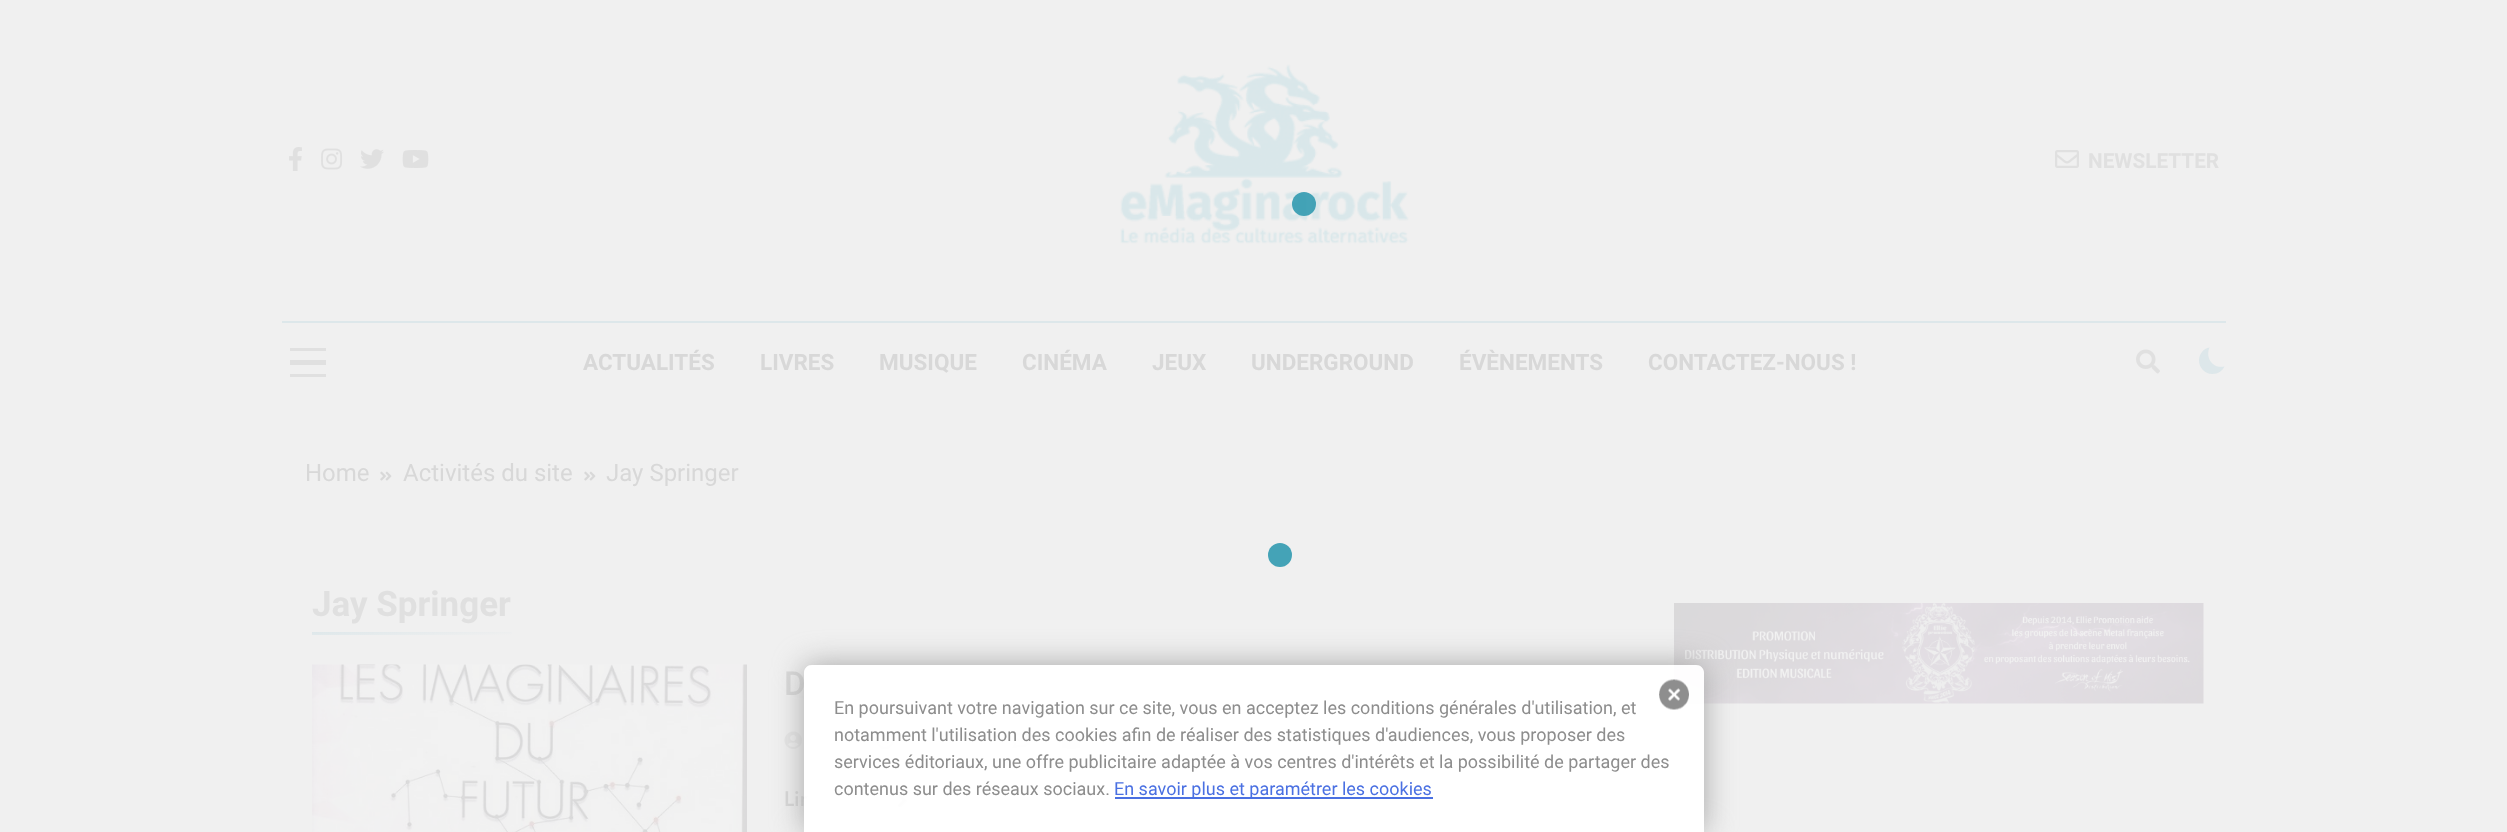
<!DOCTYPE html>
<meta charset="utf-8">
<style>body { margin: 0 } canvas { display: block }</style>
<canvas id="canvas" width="2507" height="832"></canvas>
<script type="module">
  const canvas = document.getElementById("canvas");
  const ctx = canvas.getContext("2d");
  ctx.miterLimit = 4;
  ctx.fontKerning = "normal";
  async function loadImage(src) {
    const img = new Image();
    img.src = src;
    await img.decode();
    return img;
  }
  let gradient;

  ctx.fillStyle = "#f0f0f0";
  ctx.fillRect(0, 0, 2507, 832);
  ctx.drawImage(await loadImage("img1.png"), 289, 147, 13, 24);
  ctx.drawImage(await loadImage("img2.png"), 321, 148, 22, 22);
  ctx.drawImage(await loadImage("img3.png"), 360, 149, 24, 20);
  ctx.drawImage(await loadImage("img4.png"), 402, 150, 27, 18);
  ctx.drawImage(await loadImage("img5.png"), 1120, 64, 289, 180);
  ctx.drawImage(await loadImage("img6.png"), 2055, 150, 24, 18);
  ctx.font = "bold 20.75px Roboto";
  ctx.fillStyle = "#e0e0e0";
  ctx.fillText("NEWSLETTER", 2088, 168);
  ctx.fillStyle = "#dde7ea";
  ctx.fillRect(282, 321, 1944, 2);
  ctx.fillStyle = "#e0e0e0";
  ctx.fillRect(290, 348, 36, 3);
  ctx.fillRect(290, 360, 36, 5);
  ctx.fillRect(290, 374, 36, 3);
  ctx.font = "bold 22.5px Roboto";
  ctx.fillStyle = "#d8d8d8";
  ctx.fillText("ACTUALITÉS", 583, 370);
  ctx.fillText("LIVRES", 760, 370);
  ctx.fillText("MUSIQUE", 879, 370);
  ctx.fillText("CINÉMA", 1022, 370);
  ctx.fillText("JEUX", 1152, 370);
  ctx.fillText("UNDERGROUND", 1251, 370);
  ctx.fillText("ÉVÈNEMENTS", 1459, 370);
  ctx.fillText("CONTACTEZ-NOUS !", 1648, 370);
  ctx.drawImage(await loadImage("img7.png"), 2136, 349, 24, 25);
  ctx.fillStyle = "#dde7ea";
  ctx.beginPath();
  ctx.moveTo(2224.5, 366.5);
  ctx.bezierCurveTo(2213, 369, 2205, 358, 2209.5, 347.5);
  ctx.bezierCurveTo(2203.5, 348.5, 2199, 354, 2199, 360.5);
  ctx.bezierCurveTo(2199, 368, 2205, 374, 2212.5, 374);
  ctx.bezierCurveTo(2218, 374, 2222.5, 371, 2224.5, 366.5);
  ctx.closePath();
  ctx.fill();
  ctx.fillStyle = "rgba(49, 154, 176, 0.9)";
  ctx.beginPath();
  ctx.arc(1304, 204, 12, 0, Math.PI * 2);
  ctx.fill();
  ctx.fillStyle = "#44a3b7";
  ctx.beginPath();
  ctx.arc(1280, 555, 12, 0, Math.PI * 2);
  ctx.fill();
  ctx.font = "24px Roboto";
  ctx.fillStyle = "#d8d8d8";
  ctx.fillText("Home", 305, 481);
  ctx.drawImage(await loadImage("img8.png"), 380, 471, 12, 10);
  ctx.fillText("Activités du site", 403, 481);
  ctx.drawImage(await loadImage("img8.png"), 584, 471, 12, 10);
  ctx.fillText("Jay Springer", 606, 481);
  ctx.font = "bold 35px Roboto";
  ctx.fillStyle = "#e0e0e0";
  ctx.fillText("Jay Springer", 312, 616);
  gradient = ctx.createLinearGradient(411, 625, 412, 641);
  gradient.addColorStop(0, "#dde7ea");
  gradient.addColorStop(1, "#f0f0f0");
  ctx.fillStyle = gradient;
  ctx.fillRect(312, 632, 200, 3);
  ctx.drawImage(await loadImage("img9.png"), 312, 664, 435, 168);
  ctx.font = "500 33px Roboto";
  ctx.fillStyle = "#d8d8d8";
  ctx.fillText("D", 784, 695);
  ctx.drawImage(await loadImage("img10.png"), 784, 731, 18, 18);
  ctx.drawImage(await loadImage("img11.png"), 876, 731, 18, 18);
  ctx.drawImage(await loadImage("img12.png"), 1012, 732, 19, 17);
  ctx.drawImage(await loadImage("img13.png"), 1062, 731, 18, 19);
  ctx.font = "500 21px Jost";
  ctx.fillText("Lir", 784, 806);
  ctx.drawImage(await loadImage("img14.png"), 898, 794, 9, 14);
  ctx.drawImage(await loadImage("img15.png"), 1674, 603, 530, 101);
  ctx.save();
  ctx.beginPath();
  ctx.moveTo(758, 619);
  ctx.lineTo(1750, 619);
  ctx.lineTo(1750, 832);
  ctx.lineTo(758, 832);
  ctx.closePath();
  ctx.moveTo(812, 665);
  ctx.lineTo(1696, 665);
  ctx.bezierCurveTo(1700.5, 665, 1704, 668.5, 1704, 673);
  ctx.lineTo(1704, 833);
  ctx.lineTo(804, 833);
  ctx.lineTo(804, 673);
  ctx.bezierCurveTo(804, 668.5, 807.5, 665, 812, 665);
  ctx.closePath();
  ctx.clip("evenodd");
  ctx.fillStyle = "rgba(161, 161, 161, 0.95)";
  ctx.filter = "blur(15px)";
  ctx.beginPath();
  ctx.roundRect(804, 665, 900, 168, 8);
  ctx.fill();
  ctx.filter = "none";
  ctx.restore();
  ctx.fillStyle = "rgba(255, 255, 255, 0.95)";
  ctx.beginPath();
  ctx.moveTo(812, 665);
  ctx.lineTo(1696, 665);
  ctx.bezierCurveTo(1700.5, 665, 1704, 668.5, 1704, 673);
  ctx.lineTo(1704, 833);
  ctx.lineTo(804, 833);
  ctx.lineTo(804, 673);
  ctx.bezierCurveTo(804, 668.5, 807.5, 665, 812, 665);
  ctx.closePath();
  ctx.fill();
  ctx.drawImage(await loadImage("img16.png"), 1659, 679, 30, 31);
  ctx.font = "18px Roboto";
  ctx.fillStyle = "#8d8d8d";
  ctx.fillText("En poursuivant votre navigation sur ce site, vous en acceptez les conditions générales d'utilisation, et", 834, 714);
  ctx.fillText("notamment l'utilisation des cookies afin de réaliser des statistiques d'audiences, vous proposer des", 834, 741);
  ctx.fillText("services éditoriaux, une offre publicitaire adaptée à vos centres d'intérêts et la possibilité de partager des", 834, 768);
  ctx.fillText("contenus sur des réseaux sociaux.", 834, 795);
  ctx.fillStyle = "#4a70e2";
  ctx.fillRect(1115, 797, 318, 2);
  ctx.fillText("En savoir plus et paramétrer les cookies", 1114, 795);
</script>
